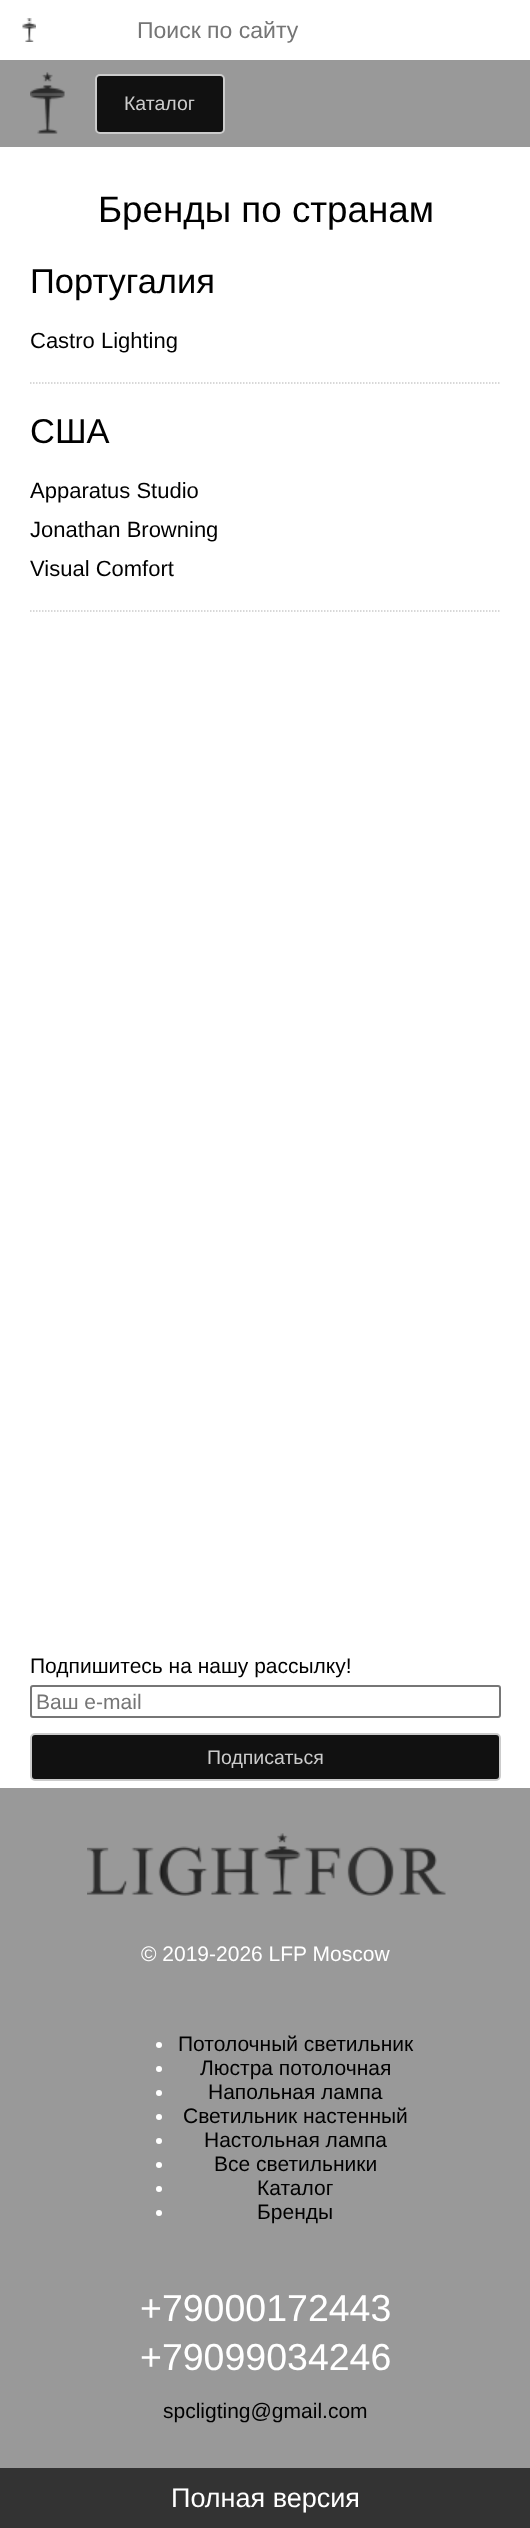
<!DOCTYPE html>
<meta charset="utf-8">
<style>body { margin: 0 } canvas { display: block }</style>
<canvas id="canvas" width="530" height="2528"></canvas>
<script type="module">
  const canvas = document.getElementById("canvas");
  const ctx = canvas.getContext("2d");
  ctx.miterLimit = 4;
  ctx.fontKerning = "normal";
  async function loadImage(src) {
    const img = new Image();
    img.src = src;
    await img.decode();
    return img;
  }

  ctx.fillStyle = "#ffffff";
  ctx.fillRect(0, 0, 530, 2528);
  ctx.drawImage(await loadImage("img1.png"), 22, 18, 14, 24);
  ctx.font = "23px Liberation Sans";
  ctx.fillStyle = "#757575";
  ctx.fillText("Поиск по сайту", 137, 38);
  ctx.fillStyle = "#999999";
  ctx.fillRect(0, 60, 530, 87);
  ctx.drawImage(await loadImage("img2.png"), 30, 72, 35, 62);
  ctx.fillStyle = "#111111";
  ctx.beginPath();
  ctx.roundRect(96, 75, 128, 58, 4);
  ctx.fill();
  ctx.strokeStyle = "#cccccc";
  ctx.lineWidth = 2;
  ctx.stroke();
  ctx.font = "19.5px Liberation Sans";
  ctx.fillStyle = "#cccccc";
  ctx.fillText("Каталог", 124, 110);
  ctx.font = "36.75px Liberation Sans";
  ctx.fillStyle = "#000000";
  ctx.fillText("Бренды по странам", 98, 222);
  ctx.beginPath();
  ctx.moveTo(30, 383);
  ctx.lineTo(501, 383);
  ctx.lineWidth = 1.5;
  ctx.setLineDash([1.5, 1.5]);
  ctx.stroke();
  ctx.font = "34.5px Liberation Sans";
  ctx.fillText("Португалия", 30, 293);
  ctx.font = "22px Liberation Sans";
  ctx.fillText("Castro Lighting", 30, 348);
  ctx.beginPath();
  ctx.moveTo(30, 611);
  ctx.lineTo(501, 611);
  ctx.stroke();
  ctx.font = "34.5px Liberation Sans";
  ctx.fillText("США", 30, 443);
  ctx.font = "22px Liberation Sans";
  ctx.fillText("Apparatus Studio", 30, 498);
  ctx.fillText("Jonathan Browning", 30, 537);
  ctx.fillText("Visual Comfort", 30, 576);
  ctx.font = "21px Liberation Sans";
  ctx.fillText("Подпишитесь на нашу рассылку!", 30, 1673);
  ctx.beginPath();
  ctx.roundRect(31, 1686, 469, 31, 2);
  ctx.strokeStyle = "#767676";
  ctx.lineWidth = 2;
  ctx.setLineDash([]);
  ctx.stroke();
  ctx.fillStyle = "#757575";
  ctx.fillText("Ваш e-mail", 36, 1709);
  ctx.fillStyle = "#111111";
  ctx.beginPath();
  ctx.roundRect(31, 1734, 469, 46, 4);
  ctx.fill();
  ctx.strokeStyle = "#cccccc";
  ctx.stroke();
  ctx.font = "19.5px Liberation Sans";
  ctx.fillStyle = "#cccccc";
  ctx.fillText("Подписаться", 207, 1764);
  ctx.fillStyle = "#999999";
  ctx.fillRect(0, 1788, 530, 680);
  ctx.drawImage(await loadImage("img3.png"), 87, 1833, 359, 63);
  ctx.font = "21px Liberation Sans";
  ctx.fillStyle = "#ffffff";
  ctx.fillText("© 2019-2026 LFP Moscow", 141, 1961);
  ctx.beginPath();
  ctx.arc(159, 2045, 3, 0, Math.PI * 2);
  ctx.fill();
  ctx.fillStyle = "#000000";
  ctx.fillText("Потолочный светильник", 178, 2051);
  ctx.fillStyle = "#ffffff";
  ctx.beginPath();
  ctx.arc(159, 2069, 3, 0, Math.PI * 2);
  ctx.fill();
  ctx.fillStyle = "#000000";
  ctx.fillText("Люстра потолочная", 200, 2075);
  ctx.fillStyle = "#ffffff";
  ctx.beginPath();
  ctx.arc(159, 2093, 3, 0, Math.PI * 2);
  ctx.fill();
  ctx.fillStyle = "#000000";
  ctx.fillText("Напольная лампа", 208, 2099);
  ctx.fillStyle = "#ffffff";
  ctx.beginPath();
  ctx.arc(159, 2117, 3, 0, Math.PI * 2);
  ctx.fill();
  ctx.fillStyle = "#000000";
  ctx.fillText("Светильник настенный", 183, 2123);
  ctx.fillStyle = "#ffffff";
  ctx.beginPath();
  ctx.arc(159, 2141, 3, 0, Math.PI * 2);
  ctx.fill();
  ctx.fillStyle = "#000000";
  ctx.fillText("Настольная лампа", 204, 2147);
  ctx.fillStyle = "#ffffff";
  ctx.beginPath();
  ctx.arc(159, 2165, 3, 0, Math.PI * 2);
  ctx.fill();
  ctx.fillStyle = "#000000";
  ctx.fillText("Все светильники", 214, 2171);
  ctx.fillStyle = "#ffffff";
  ctx.beginPath();
  ctx.arc(159, 2189, 3, 0, Math.PI * 2);
  ctx.fill();
  ctx.fillStyle = "#000000";
  ctx.fillText("Каталог", 257, 2195);
  ctx.fillStyle = "#ffffff";
  ctx.beginPath();
  ctx.arc(159, 2213, 3, 0, Math.PI * 2);
  ctx.fill();
  ctx.fillStyle = "#000000";
  ctx.fillText("Бренды", 257, 2219);
  ctx.font = "37.5px Liberation Sans";
  ctx.fillStyle = "#ffffff";
  ctx.fillText("+79000172443", 140, 2321);
  ctx.fillText("+79099034246", 140, 2370);
  ctx.font = "21px Liberation Sans";
  ctx.fillStyle = "#000000";
  ctx.fillText("spcligting@gmail.com", 163, 2418);
  ctx.fillStyle = "#333333";
  ctx.fillRect(0, 2468, 530, 60);
  ctx.font = "27px Liberation Sans";
  ctx.fillStyle = "#ffffff";
  ctx.fillText("Полная версия", 171, 2507);
</script>
